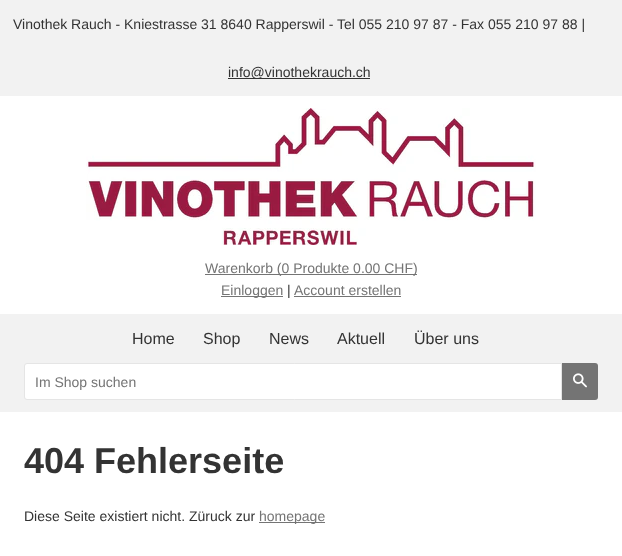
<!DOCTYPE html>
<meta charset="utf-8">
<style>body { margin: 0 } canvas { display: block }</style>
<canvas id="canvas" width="622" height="556"></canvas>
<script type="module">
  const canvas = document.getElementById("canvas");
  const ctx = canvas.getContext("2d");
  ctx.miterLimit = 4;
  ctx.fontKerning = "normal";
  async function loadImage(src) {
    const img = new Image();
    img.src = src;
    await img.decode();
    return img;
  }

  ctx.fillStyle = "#ffffff";
  ctx.fillRect(0, 0, 622, 556);
  ctx.fillStyle = "#f2f2f2";
  ctx.fillRect(0, 0, 622, 96);
  ctx.font = "14px Liberation Sans";
  ctx.fillStyle = "#333333";
  ctx.fillText("Vinothek Rauch - Kniestrasse 31 8640 Rapperswil - Tel 055 210 97 87 - Fax 055 210 97 88 |", 13, 29);
  ctx.fillRect(228, 78, 142, 1);
  ctx.fillText("info@vinothekrauch.ch", 228, 77);
  ctx.drawImage(await loadImage("img1.png"), 86, 108, 450, 137);
  ctx.fillStyle = "#747474";
  ctx.fillRect(205, 274, 212, 1);
  ctx.fillText("Warenkorb (0 Produkte 0.00 CHF)", 205, 273);
  ctx.fillRect(221, 296, 62, 1);
  ctx.fillText("Einloggen", 221, 295);
  ctx.fillStyle = "#333333";
  ctx.fillText("|", 287, 295);
  ctx.fillStyle = "#747474";
  ctx.fillText("Account erstellen", 294, 295);
  ctx.fillRect(294, 296, 107, 1);
  ctx.fillStyle = "#f2f2f2";
  ctx.fillRect(0, 314, 622, 98);
  ctx.font = "16px Liberation Sans";
  ctx.fillStyle = "#333333";
  ctx.fillText("Home", 132, 344);
  ctx.fillText("Shop", 203, 344);
  ctx.fillText("News", 269, 344);
  ctx.fillText("Aktuell", 337, 344);
  ctx.fillText("Über uns", 414, 344);
  ctx.fillStyle = "#ffffff";
  ctx.beginPath();
  ctx.roundRect(24.5, 363.5, 537, 36, [2.5, 0, 0, 2.5]);
  ctx.fill();
  ctx.strokeStyle = "#e5e5e5";
  ctx.stroke();
  ctx.font = "14px Liberation Sans";
  ctx.fillStyle = "#747474";
  ctx.fillText("Im Shop suchen", 35, 387);
  ctx.beginPath();
  ctx.roundRect(562, 363, 36, 37, [0, 3, 3, 0]);
  ctx.fill();
  ctx.drawImage(await loadImage("img2.png"), 573, 373, 14, 15);
  ctx.font = "bold 36px Liberation Sans";
  ctx.fillStyle = "#333333";
  ctx.fillText("404 Fehlerseite", 24, 473);
  ctx.font = "14px Liberation Sans";
  ctx.fillText("Diese Seite existiert nicht. Züruck zur", 24, 521);
  ctx.fillStyle = "#747474";
  ctx.fillRect(259, 522, 66, 1);
  ctx.fillText("homepage", 259, 521);
</script>
